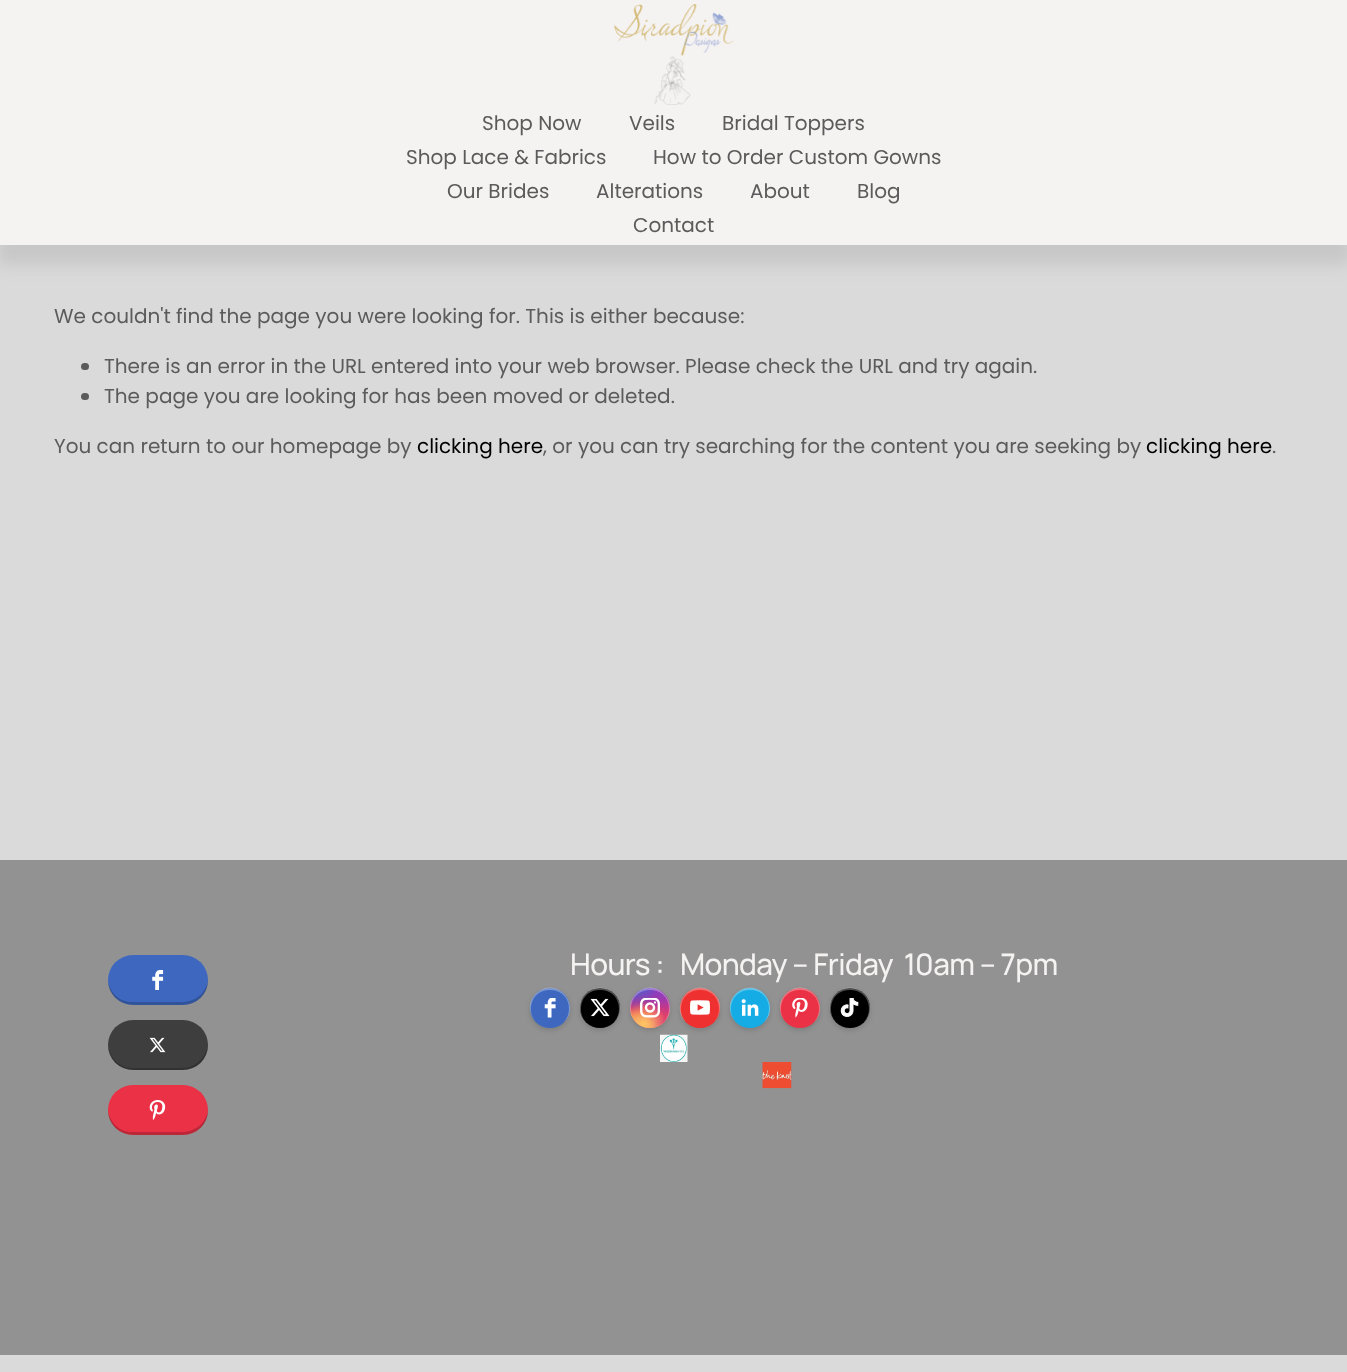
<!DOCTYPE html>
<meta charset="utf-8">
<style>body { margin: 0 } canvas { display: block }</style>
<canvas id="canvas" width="1347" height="1372"></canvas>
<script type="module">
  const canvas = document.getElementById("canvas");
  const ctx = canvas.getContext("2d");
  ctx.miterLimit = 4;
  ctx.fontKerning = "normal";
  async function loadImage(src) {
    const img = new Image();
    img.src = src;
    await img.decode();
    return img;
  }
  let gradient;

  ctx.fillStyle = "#dadada";
  ctx.fillRect(0, 0, 1347, 1372);
  ctx.fillStyle = "#c7c7c7";
  ctx.filter = "blur(7.5px)";
  ctx.beginPath();
  ctx.rect(-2, 15, 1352, 250);
  ctx.fill();
  ctx.filter = "none";
  ctx.fillStyle = "#f5f2f2";
  ctx.fillRect(0, 0, 1347, 245);
  ctx.drawImage(await loadImage("img1.png"), 614, 4, 120, 101);
  ctx.font = "20px Poppins";
  ctx.fillStyle = "#5b5b5b";
  ctx.fillText("Shop Now", 482, 130);
  ctx.fillText("Veils", 629, 130);
  ctx.fillText("Bridal Toppers", 722, 130);
  ctx.fillText("Shop Lace & Fabrics", 406, 164);
  ctx.fillText("How to Order Custom Gowns", 653, 164);
  ctx.fillText("Our Brides", 447, 198);
  ctx.fillText("Alterations", 596, 198);
  ctx.fillText("About", 750, 198);
  ctx.fillText("Blog", 857, 198);
  ctx.fillText("Contact", 633, 232);
  ctx.fillText("We couldn't find the page you were looking for. This is either because:", 54, 323);
  ctx.beginPath();
  ctx.roundRect(81, 363, 8, 7, 3.5);
  ctx.fill();
  ctx.fillText("There is an error in the URL entered into your web browser. Please check the URL and try again.", 104, 373);
  ctx.beginPath();
  ctx.roundRect(81, 393, 8, 7, 3.5);
  ctx.fill();
  ctx.fillText("The page you are looking for has been moved or deleted.", 104, 403);
  ctx.fillText("You can return to our homepage by", 54, 453);
  ctx.fillStyle = "#000000";
  ctx.fillText("clicking here", 417, 453);
  ctx.fillStyle = "#5b5b5b";
  ctx.fillText(", or you can try searching for the content you are seeking by", 543, 453);
  ctx.fillStyle = "#000000";
  ctx.fillText("clicking here", 1146, 453);
  ctx.fillStyle = "#5b5b5b";
  ctx.fillText(".", 1272, 453);
  ctx.fillStyle = "#929292";
  ctx.fillRect(0, 860, 1347, 495);
  ctx.fillStyle = "#3e68c0";
  ctx.beginPath();
  ctx.roundRect(108, 955, 100, 50, 25);
  ctx.fill();
  ctx.fillStyle = "rgba(0, 0, 0, 0.2)";
  ctx.beginPath();
  ctx.moveTo(108, 979);
  ctx.bezierCurveTo(108, 984, 109, 990, 112, 994);
  ctx.bezierCurveTo(120, 1005, 130, 1005, 141, 1005);
  ctx.lineTo(175, 1005);
  ctx.bezierCurveTo(186, 1005, 196, 1005, 204, 994);
  ctx.bezierCurveTo(207, 990, 208, 984, 208, 979);
  ctx.bezierCurveTo(207, 992, 196, 1002, 182, 1002);
  ctx.lineTo(132, 1002);
  ctx.bezierCurveTo(119, 1002, 109, 992, 108, 979);
  ctx.closePath();
  ctx.fill();
  ctx.drawImage(await loadImage("img2.png"), 152, 970, 12, 20);
  ctx.fillStyle = "#3e3e3e";
  ctx.beginPath();
  ctx.roundRect(108, 1020, 100, 50, 25);
  ctx.fill();
  ctx.fillStyle = "rgba(0, 0, 0, 0.2)";
  ctx.beginPath();
  ctx.moveTo(108, 1044);
  ctx.bezierCurveTo(108, 1049, 109, 1054, 112, 1059);
  ctx.bezierCurveTo(120, 1070, 130, 1070, 141, 1070);
  ctx.lineTo(175, 1070);
  ctx.bezierCurveTo(186, 1070, 196, 1070, 204, 1059);
  ctx.bezierCurveTo(207, 1054, 208, 1049, 208, 1043);
  ctx.bezierCurveTo(207, 1057, 196, 1068, 182, 1068);
  ctx.lineTo(132, 1068);
  ctx.bezierCurveTo(119, 1068, 109, 1057, 108, 1044);
  ctx.closePath();
  ctx.fill();
  ctx.drawImage(await loadImage("img3.png"), 149, 1037, 17, 16);
  ctx.fillStyle = "#ea3145";
  ctx.beginPath();
  ctx.roundRect(108, 1085, 100, 50, 25);
  ctx.fill();
  ctx.fillStyle = "rgba(0, 0, 0, 0.2)";
  ctx.beginPath();
  ctx.moveTo(108, 1109);
  ctx.bezierCurveTo(108, 1114, 109, 1120, 112, 1124);
  ctx.bezierCurveTo(120, 1135, 130, 1135, 141, 1135);
  ctx.lineTo(175, 1135);
  ctx.bezierCurveTo(186, 1135, 196, 1135, 204, 1124);
  ctx.bezierCurveTo(207, 1120, 208, 1114, 208, 1109);
  ctx.bezierCurveTo(207, 1122, 196, 1132, 182, 1132);
  ctx.lineTo(132, 1132);
  ctx.bezierCurveTo(119, 1132, 109, 1122, 108, 1109);
  ctx.closePath();
  ctx.fill();
  ctx.drawImage(await loadImage("img4.png"), 149, 1100, 17, 20);
  ctx.letterSpacing = "-0.6px";
  ctx.font = "500 29.75px Manrope";
  ctx.fillStyle = "#f5f2f2";
  ctx.fillText("Hours :   Monday – Friday  10am – 7pm", 570, 975);
  ctx.fillStyle = "rgba(0, 0, 0, 0.15)";
  ctx.filter = "blur(2.5px)";
  ctx.beginPath();
  ctx.roundRect(530, 990, 40, 40, 20);
  ctx.fill();
  ctx.filter = "none";
  ctx.fillStyle = "#3e68c0";
  ctx.beginPath();
  ctx.arc(550, 1008, 20, 0, Math.PI * 2);
  ctx.fill();
  ctx.fillStyle = "rgba(255, 255, 255, 0.3)";
  ctx.beginPath();
  ctx.moveTo(550, 990);
  ctx.bezierCurveTo(570, 990, 574, 1013, 563, 1023);
  ctx.bezierCurveTo(582, 1008, 560, 977, 539, 991);
  ctx.bezierCurveTo(535, 994, 531, 999, 530, 1004);
  ctx.bezierCurveTo(529, 1011, 532, 1019, 537, 1023);
  ctx.bezierCurveTo(526, 1013, 530, 990, 550, 990);
  ctx.closePath();
  ctx.fill();
  ctx.drawImage(await loadImage("img5.png"), 544, 998, 12, 20);
  ctx.fillStyle = "rgba(0, 0, 0, 0.15)";
  ctx.filter = "blur(2.5px)";
  ctx.beginPath();
  ctx.roundRect(580, 990, 40, 40, 20);
  ctx.fill();
  ctx.filter = "none";
  ctx.fillStyle = "#000000";
  ctx.beginPath();
  ctx.arc(600, 1008, 20, 0, Math.PI * 2);
  ctx.fill();
  ctx.fillStyle = "rgba(255, 255, 255, 0.3)";
  ctx.beginPath();
  ctx.moveTo(600, 990);
  ctx.bezierCurveTo(620, 990, 624, 1013, 613, 1023);
  ctx.bezierCurveTo(632, 1008, 610, 977, 589, 991);
  ctx.bezierCurveTo(585, 994, 581, 999, 580, 1004);
  ctx.bezierCurveTo(579, 1011, 582, 1019, 587, 1023);
  ctx.bezierCurveTo(576, 1013, 580, 990, 600, 990);
  ctx.closePath();
  ctx.fill();
  ctx.drawImage(await loadImage("img6.png"), 590, 998, 20, 19);
  ctx.drawImage(await loadImage("img12.png"), 660, 1034, 28, 28);
  ctx.fillStyle = "rgba(0, 0, 0, 0.15)";
  ctx.filter = "blur(2.5px)";
  ctx.beginPath();
  ctx.roundRect(630, 990, 40, 40, 20);
  ctx.fill();
  ctx.filter = "none";
  gradient = ctx.createLinearGradient(650, 988, 650, 1028);
  gradient.addColorStop(0, "#6559ca");
  gradient.addColorStop(0.3, "#bc318f");
  gradient.addColorStop(0.5, "#e33f5f");
  gradient.addColorStop(0.7, "#f77638");
  gradient.addColorStop(1, "#fec66d");
  ctx.fillStyle = gradient;
  ctx.beginPath();
  ctx.arc(650, 1008, 20, 0, Math.PI * 2);
  ctx.fill();
  gradient = ctx.createRadialGradient(670, 1028, 0, 670, 1028, 57);
  gradient.addColorStop(0, "#d9317a");
  gradient.addColorStop(1, "rgba(217, 49, 122, 0)");
  ctx.fillStyle = gradient;
  ctx.beginPath();
  ctx.arc(650, 1008, 20, 0, Math.PI * 2);
  ctx.fill();
  gradient = ctx.createRadialGradient(654, 490, 0, 654, 490, 34);
  gradient.addColorStop(0, "#893dc2");
  gradient.addColorStop(0.5, "rgba(137, 61, 194, 0)");
  ctx.fillStyle = gradient;
  ctx.beginPath();
  ctx.arc(650, 1008, 20, 0, Math.PI * 2);
  ctx.save();
  ctx.clip();
  ctx.scale(1, 68 / 34);
  ctx.fillRect(0, 0, 1347, 686);
  ctx.restore();
  gradient = ctx.createRadialGradient(670, 988, 0, 670, 988, 57);
  gradient.addColorStop(0, "#893dc2");
  gradient.addColorStop(0.5, "rgba(137, 61, 194, 0)");
  ctx.fillStyle = gradient;
  ctx.beginPath();
  ctx.arc(650, 1008, 20, 0, Math.PI * 2);
  ctx.fill();
  gradient = ctx.createRadialGradient(638, 512.47, 0, 638, 512.47, 45);
  gradient.addColorStop(0, "#5258cf");
  gradient.addColorStop(0.5, "rgba(82, 88, 207, 0)");
  ctx.fillStyle = gradient;
  ctx.beginPath();
  ctx.arc(650, 1008, 20, 0, Math.PI * 2);
  ctx.save();
  ctx.clip();
  ctx.scale(1, 85 / 45);
  ctx.fillRect(0, 0, 1347, 727);
  ctx.restore();
  gradient = ctx.createRadialGradient(630, 785.15, 0, 630, 785.15, 57);
  gradient.addColorStop(0, "#5258cf");
  gradient.addColorStop(0.5, "rgba(82, 88, 207, 0)");
  ctx.fillStyle = gradient;
  ctx.beginPath();
  ctx.arc(650, 1008, 20, 0, Math.PI * 2);
  ctx.save();
  ctx.clip();
  ctx.scale(1, 71 / 57);
  ctx.fillRect(0, 0, 1347, 1102);
  ctx.restore();
  gradient = ctx.createRadialGradient(630, 1044, 0, 630, 1044, 69);
  gradient.addColorStop(0, "#fec564");
  gradient.addColorStop(0.5, "rgba(254, 197, 100, 0)");
  ctx.fillStyle = gradient;
  ctx.beginPath();
  ctx.arc(650, 1008, 20, 0, Math.PI * 2);
  ctx.fill();
  gradient = ctx.createRadialGradient(644, 1024, 0, 644, 1024, 44);
  gradient.addColorStop(0, "#fec564");
  gradient.addColorStop(0.5, "rgba(254, 197, 100, 0)");
  ctx.fillStyle = gradient;
  ctx.beginPath();
  ctx.arc(650, 1008, 20, 0, Math.PI * 2);
  ctx.fill();
  ctx.fillStyle = "rgba(255, 255, 255, 0.3)";
  ctx.beginPath();
  ctx.moveTo(650, 990);
  ctx.bezierCurveTo(670, 990, 674, 1013, 663, 1023);
  ctx.bezierCurveTo(682, 1008, 660, 977, 639, 991);
  ctx.bezierCurveTo(635, 994, 631, 999, 630, 1004);
  ctx.bezierCurveTo(629, 1011, 632, 1019, 637, 1023);
  ctx.bezierCurveTo(626, 1013, 630, 990, 650, 990);
  ctx.closePath();
  ctx.fill();
  ctx.drawImage(await loadImage("img7.png"), 640, 998, 20, 20);
  ctx.fillStyle = "rgba(0, 0, 0, 0.15)";
  ctx.filter = "blur(2.5px)";
  ctx.beginPath();
  ctx.roundRect(680, 990, 40, 40, 20);
  ctx.fill();
  ctx.filter = "none";
  ctx.fillStyle = "#ee3130";
  ctx.beginPath();
  ctx.arc(700, 1008, 20, 0, Math.PI * 2);
  ctx.fill();
  ctx.fillStyle = "rgba(255, 255, 255, 0.3)";
  ctx.beginPath();
  ctx.moveTo(700, 990);
  ctx.bezierCurveTo(720, 990, 724, 1013, 713, 1023);
  ctx.bezierCurveTo(718, 1019, 721, 1011, 720, 1004);
  ctx.bezierCurveTo(719, 999, 715, 994, 711, 991);
  ctx.bezierCurveTo(690, 977, 668, 1008, 687, 1023);
  ctx.bezierCurveTo(676, 1013, 680, 990, 700, 990);
  ctx.closePath();
  ctx.fill();
  ctx.drawImage(await loadImage("img8.png"), 690, 1000, 20, 15);
  ctx.fillStyle = "rgba(0, 0, 0, 0.15)";
  ctx.filter = "blur(2.5px)";
  ctx.beginPath();
  ctx.roundRect(730, 990, 40, 40, 20);
  ctx.fill();
  ctx.filter = "none";
  ctx.fillStyle = "#15ace5";
  ctx.beginPath();
  ctx.arc(750, 1008, 20, 0, Math.PI * 2);
  ctx.fill();
  ctx.fillStyle = "rgba(255, 255, 255, 0.3)";
  ctx.beginPath();
  ctx.moveTo(750, 990);
  ctx.bezierCurveTo(770, 990, 774, 1013, 763, 1023);
  ctx.bezierCurveTo(782, 1008, 760, 977, 739, 991);
  ctx.bezierCurveTo(735, 994, 731, 999, 730, 1004);
  ctx.bezierCurveTo(729, 1011, 732, 1019, 737, 1023);
  ctx.bezierCurveTo(726, 1013, 730, 990, 750, 990);
  ctx.closePath();
  ctx.fill();
  ctx.drawImage(await loadImage("img9.png"), 741, 999, 18, 17);
  ctx.fillStyle = "rgba(0, 0, 0, 0.15)";
  ctx.filter = "blur(2.5px)";
  ctx.beginPath();
  ctx.roundRect(780, 990, 40, 40, 20);
  ctx.fill();
  ctx.filter = "none";
  ctx.fillStyle = "#ea3145";
  ctx.beginPath();
  ctx.arc(800, 1008, 20, 0, Math.PI * 2);
  ctx.fill();
  ctx.fillStyle = "rgba(255, 255, 255, 0.3)";
  ctx.beginPath();
  ctx.moveTo(800, 990);
  ctx.bezierCurveTo(820, 990, 824, 1013, 813, 1023);
  ctx.bezierCurveTo(832, 1008, 810, 977, 789, 991);
  ctx.bezierCurveTo(785, 994, 781, 999, 780, 1004);
  ctx.bezierCurveTo(779, 1011, 782, 1019, 787, 1023);
  ctx.bezierCurveTo(776, 1013, 780, 990, 800, 990);
  ctx.closePath();
  ctx.fill();
  ctx.drawImage(await loadImage("img10.png"), 792, 998, 16, 20);
  ctx.fillStyle = "rgba(0, 0, 0, 0.15)";
  ctx.filter = "blur(2.5px)";
  ctx.beginPath();
  ctx.roundRect(830, 990, 40, 40, 20);
  ctx.fill();
  ctx.filter = "none";
  ctx.fillStyle = "#000000";
  ctx.beginPath();
  ctx.arc(850, 1008, 20, 0, Math.PI * 2);
  ctx.fill();
  ctx.fillStyle = "rgba(255, 255, 255, 0.3)";
  ctx.beginPath();
  ctx.moveTo(850, 990);
  ctx.bezierCurveTo(870, 990, 874, 1013, 863, 1023);
  ctx.bezierCurveTo(882, 1008, 860, 977, 839, 991);
  ctx.bezierCurveTo(835, 994, 831, 999, 830, 1004);
  ctx.bezierCurveTo(829, 1011, 832, 1019, 837, 1023);
  ctx.bezierCurveTo(826, 1013, 830, 990, 850, 990);
  ctx.closePath();
  ctx.fill();
  ctx.drawImage(await loadImage("img11.png"), 840, 998, 19, 19);
  ctx.drawImage(await loadImage("img13.png"), 762, 1062, 30, 27);
</script>
